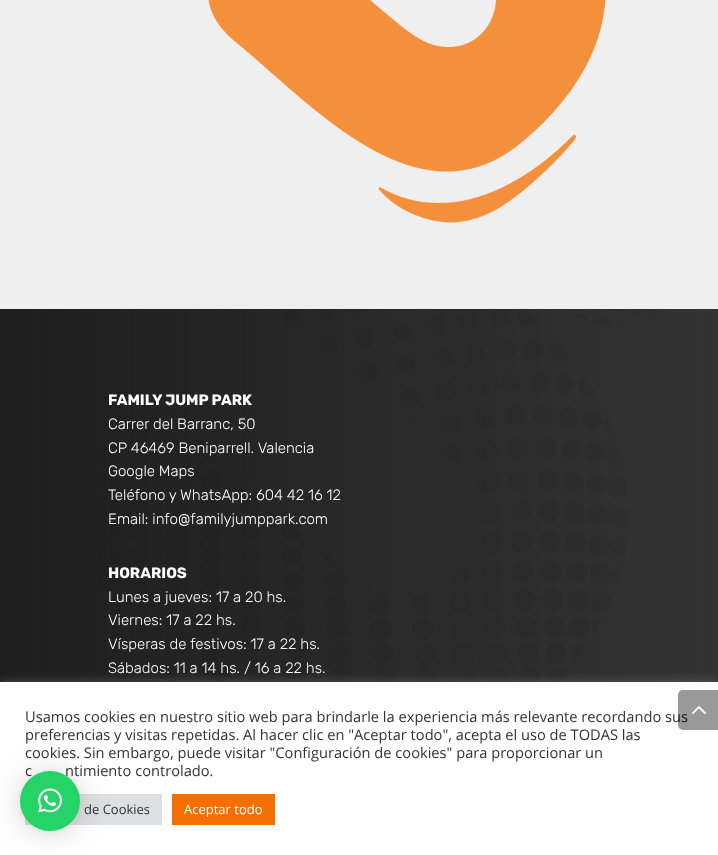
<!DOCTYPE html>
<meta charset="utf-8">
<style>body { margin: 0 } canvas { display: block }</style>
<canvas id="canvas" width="718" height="855"></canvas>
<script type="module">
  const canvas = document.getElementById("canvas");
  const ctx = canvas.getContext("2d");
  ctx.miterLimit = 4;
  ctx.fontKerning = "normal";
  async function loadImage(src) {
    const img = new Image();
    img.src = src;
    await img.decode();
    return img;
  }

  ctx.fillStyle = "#ffffff";
  ctx.fillRect(0, 0, 718, 855);
  ctx.fillStyle = "#efefef";
  ctx.fillRect(0, 0, 718, 309);
  ctx.drawImage(await loadImage("img1.png"), 208, 0, 398, 223);
  ctx.drawImage(await loadImage("img2.png"), 0, 309, 718, 373);
  ctx.font = "300 15px Rubik";
  ctx.fillStyle = "#ffffff";
  ctx.fillText("FAMILY JUMP PARK", 108, 405);
  ctx.font = "300 15px 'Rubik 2'";
  ctx.fillText("Carrer del Barranc, 50", 108, 429);
  ctx.fillText("CP 46469 Beniparrell. Valencia", 108, 453);
  ctx.fillText("Google Maps", 108, 476);
  ctx.fillText("Teléfono y WhatsApp: 604 42 16 12", 108, 500);
  ctx.fillText("Email: info@familyjumppark.com", 108, 524);
  ctx.font = "300 15px Rubik";
  ctx.fillText("HORARIOS", 108, 578);
  ctx.font = "300 15px 'Rubik 2'";
  ctx.fillText("Lunes a jueves: 17 a 20 hs.", 108, 602);
  ctx.fillText("Viernes: 17 a 22 hs.", 108, 625);
  ctx.fillText("Vísperas de festivos: 17 a 22 hs.", 108, 649);
  ctx.fillText("Sábados: 11 a 14 hs. / 16 a 22 hs.", 108, 673);
  ctx.fillStyle = "rgba(172, 171, 171, 0.3)";
  ctx.filter = "blur(5px)";
  ctx.beginPath();
  ctx.rect(0, 681, 718, 173);
  ctx.fill();
  ctx.filter = "none";
  ctx.fillStyle = "#ffffff";
  ctx.fillRect(0, 682, 718, 173);
  ctx.font = "14.65px Open Sans";
  ctx.fillStyle = "#333333";
  ctx.fillText("Usamos cookies en nuestro sitio web para brindarle la experiencia más relevante recordando sus", 25, 722);
  ctx.fillText("preferencias y visitas repetidas. Al hacer clic en \"Aceptar todo\", acepta el uso de TODAS las", 25, 740);
  ctx.fillText("cookies. Sin embargo, puede visitar \"Configuración de cookies\" para proporcionar un", 25, 758);
  ctx.fillText("c", 25, 776);
  ctx.fillText("ntimiento controlado.", 65, 776);
  ctx.fillStyle = "#dedfe0";
  ctx.fillRect(25, 794, 137, 31);
  ctx.font = "13px Open Sans";
  ctx.fillStyle = "#333333";
  ctx.fillText("de Cookies", 84, 814);
  ctx.fillStyle = "#f56f00";
  ctx.fillRect(172, 794, 103, 31);
  ctx.fillStyle = "#ffffff";
  ctx.fillText("Aceptar todo", 184, 814);
  ctx.fillStyle = "rgba(0, 0, 0, 0.4)";
  ctx.beginPath();
  ctx.roundRect(678, 690, 40, 40, [5, 0, 0, 5]);
  ctx.fill();
  ctx.drawImage(await loadImage("img3.png"), 692, 706, 14, 8);
  ctx.fillStyle = "rgba(0, 0, 0, 0.16)";
  ctx.filter = "blur(16px)";
  ctx.beginPath();
  ctx.roundRect(20, 773, 60, 60, 30);
  ctx.fill();
  ctx.filter = "none";
  ctx.fillStyle = "rgba(0, 0, 0, 0.06)";
  ctx.filter = "blur(3px)";
  ctx.beginPath();
  ctx.roundRect(20, 772, 60, 60, 30);
  ctx.fill();
  ctx.filter = "none";
  ctx.fillStyle = "#25d366";
  ctx.beginPath();
  ctx.arc(50, 801, 30, 0, Math.PI * 2);
  ctx.fill();
  ctx.drawImage(await loadImage("img4.png"), 38, 788, 24, 25);
</script>
